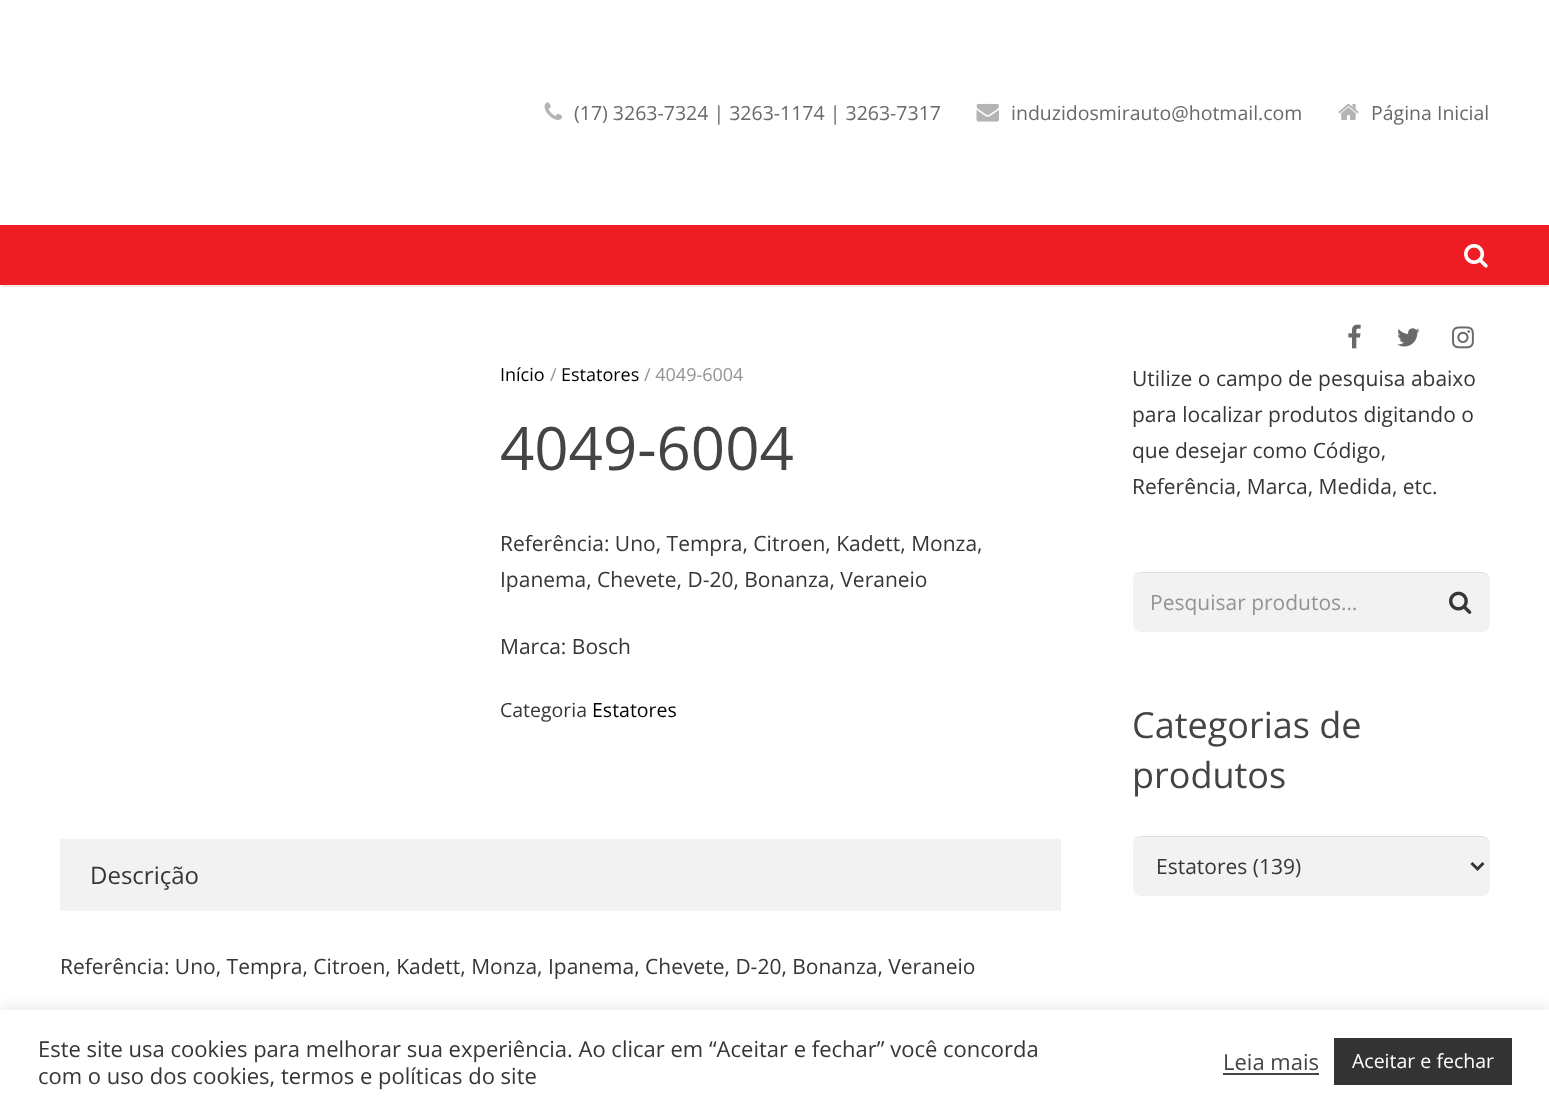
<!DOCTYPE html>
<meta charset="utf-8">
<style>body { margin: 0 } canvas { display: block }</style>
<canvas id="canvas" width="1549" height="1113"></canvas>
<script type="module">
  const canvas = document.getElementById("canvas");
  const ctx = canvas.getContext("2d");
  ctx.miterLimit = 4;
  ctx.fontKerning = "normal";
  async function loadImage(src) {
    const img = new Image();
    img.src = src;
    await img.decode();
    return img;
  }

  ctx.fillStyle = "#ffffff";
  ctx.fillRect(0, 0, 1549, 1113);
  ctx.drawImage(await loadImage("img1.png"), 544, 102, 19, 18);
  ctx.font = "19.5px Open Sans";
  ctx.fillStyle = "#696969";
  ctx.fillText("(17) 3263-7324 | 3263-1174 | 3263-7317", 574, 120);
  ctx.drawImage(await loadImage("img2.png"), 976, 103, 23, 19);
  ctx.fillText("induzidosmirauto@hotmail.com", 1011, 120);
  ctx.drawImage(await loadImage("img3.png"), 1338, 103, 21, 17);
  ctx.fillText("Página Inicial", 1371, 120);
  ctx.drawImage(await loadImage("img4.png"), 1348, 324, 13, 25);
  ctx.drawImage(await loadImage("img5.png"), 1397, 328, 23, 19);
  ctx.drawImage(await loadImage("img6.png"), 1452, 326, 22, 23);
  ctx.fillStyle = "#ebebeb";
  ctx.fillRect(2, 285, 1546, 2);
  ctx.fillStyle = "#ee1d25";
  ctx.fillRect(0, 225, 1549, 60);
  ctx.drawImage(await loadImage("img7.png"), 1464, 244, 24, 24);
  ctx.font = "18px Open Sans";
  ctx.fillStyle = "#000000";
  ctx.fillText("Início", 500, 381);
  ctx.fillStyle = "#949494";
  ctx.fillText("/", 550, 381);
  ctx.fillStyle = "#000000";
  ctx.fillText("Estatores", 561, 381);
  ctx.fillStyle = "#949494";
  ctx.fillText("/ 4049-6004", 644, 381);
  ctx.font = "60px Open Sans";
  ctx.fillStyle = "#444444";
  ctx.fillText("4049-6004", 500, 470);
  ctx.font = "21px Open Sans";
  ctx.fillStyle = "#363636";
  ctx.fillText("Referência: Uno, Tempra, Citroen, Kadett, Monza,", 500, 551);
  ctx.fillText("Ipanema, Chevete, D-20, Bonanza, Veraneio", 500, 587);
  ctx.fillText("Marca: Bosch", 500, 654);
  ctx.font = "19.5px Open Sans";
  ctx.fillText("Categoria", 500, 717);
  ctx.fillStyle = "#000000";
  ctx.fillText("Estatores", 592, 717);
  ctx.fillStyle = "#f2f2f2";
  ctx.fillRect(60, 839, 1001, 72);
  ctx.font = "24px Open Sans";
  ctx.fillStyle = "#363636";
  ctx.fillText("Descrição", 90, 884);
  ctx.font = "21px Open Sans";
  ctx.fillText("Referência: Uno, Tempra, Citroen, Kadett, Monza, Ipanema, Chevete, D-20, Bonanza, Veraneio", 60, 974);
  ctx.fillText("Utilize o campo de pesquisa abaixo", 1132, 386);
  ctx.fillText("para localizar produtos digitando o", 1132, 422);
  ctx.fillText("que desejar como Código,", 1132, 458);
  ctx.fillText("Referência, Marca, Medida, etc.", 1132, 494);
  ctx.fillStyle = "#f2f2f2";
  ctx.beginPath();
  ctx.roundRect(1133, 572, 357, 60, 8);
  ctx.fill();
  ctx.fillStyle = "rgba(0, 0, 0, 0.08)";
  ctx.beginPath();
  ctx.moveTo(1140, 573);
  ctx.lineTo(1482, 573);
  ctx.bezierCurveTo(1486, 573, 1490, 576, 1490, 580);
  ctx.bezierCurveTo(1490, 576, 1486, 572, 1482, 572);
  ctx.lineTo(1141, 572);
  ctx.bezierCurveTo(1139, 572, 1137, 573, 1135, 574);
  ctx.bezierCurveTo(1137, 574, 1138, 573, 1140, 573);
  ctx.closePath();
  ctx.fill();
  ctx.fillStyle = "#949494";
  ctx.fillText("Pesquisar produtos…", 1150, 610);
  ctx.drawImage(await loadImage("img8.png"), 1449, 591, 23, 23);
  ctx.font = "36px Open Sans";
  ctx.fillStyle = "#444444";
  ctx.fillText("Categorias de", 1132, 738);
  ctx.fillText("produtos", 1132, 788);
  ctx.fillStyle = "#f2f2f2";
  ctx.beginPath();
  ctx.roundRect(1133, 836, 357, 60, 8);
  ctx.fill();
  ctx.fillStyle = "rgba(0, 0, 0, 0.08)";
  ctx.beginPath();
  ctx.moveTo(1140, 837);
  ctx.lineTo(1482, 837);
  ctx.bezierCurveTo(1486, 837, 1490, 840, 1490, 844);
  ctx.bezierCurveTo(1490, 840, 1486, 836, 1482, 836);
  ctx.lineTo(1141, 836);
  ctx.bezierCurveTo(1139, 836, 1137, 837, 1135, 838);
  ctx.bezierCurveTo(1137, 838, 1138, 837, 1140, 837);
  ctx.closePath();
  ctx.fill();
  ctx.beginPath();
  ctx.moveTo(1471.5, 863);
  ctx.lineTo(1477.5, 869);
  ctx.lineTo(1483.5, 863);
  ctx.strokeStyle = "#363636";
  ctx.lineWidth = 3;
  ctx.stroke();
  ctx.font = "21px Open Sans";
  ctx.fillStyle = "#363636";
  ctx.fillText("Estatores (139)", 1156, 874);
  ctx.fillStyle = "rgba(172, 171, 171, 0.3)";
  ctx.filter = "blur(7.5px)";
  ctx.beginPath();
  ctx.rect(0, 1008, 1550, 104);
  ctx.fill();
  ctx.filter = "none";
  ctx.fillStyle = "#ffffff";
  ctx.fillRect(0, 1010, 1549, 103);
  ctx.font = "22px Open Sans";
  ctx.fillStyle = "#363636";
  ctx.fillText("Este site usa cookies para melhorar sua experiência. Ao clicar em “Aceitar e fechar” você concorda", 38, 1057);
  ctx.fillText("com o uso dos cookies, termos e políticas do site", 38, 1084);
  ctx.fillStyle = "#444444";
  ctx.fillText("Leia mais", 1223, 1070);
  ctx.fillRect(1223, 1073, 96, 2);
  ctx.fillStyle = "#333333";
  ctx.fillRect(1334, 1038, 178, 47);
  ctx.font = "19.5px Open Sans";
  ctx.fillStyle = "#ffffff";
  ctx.fillText("Aceitar e fechar", 1352, 1068);
</script>
